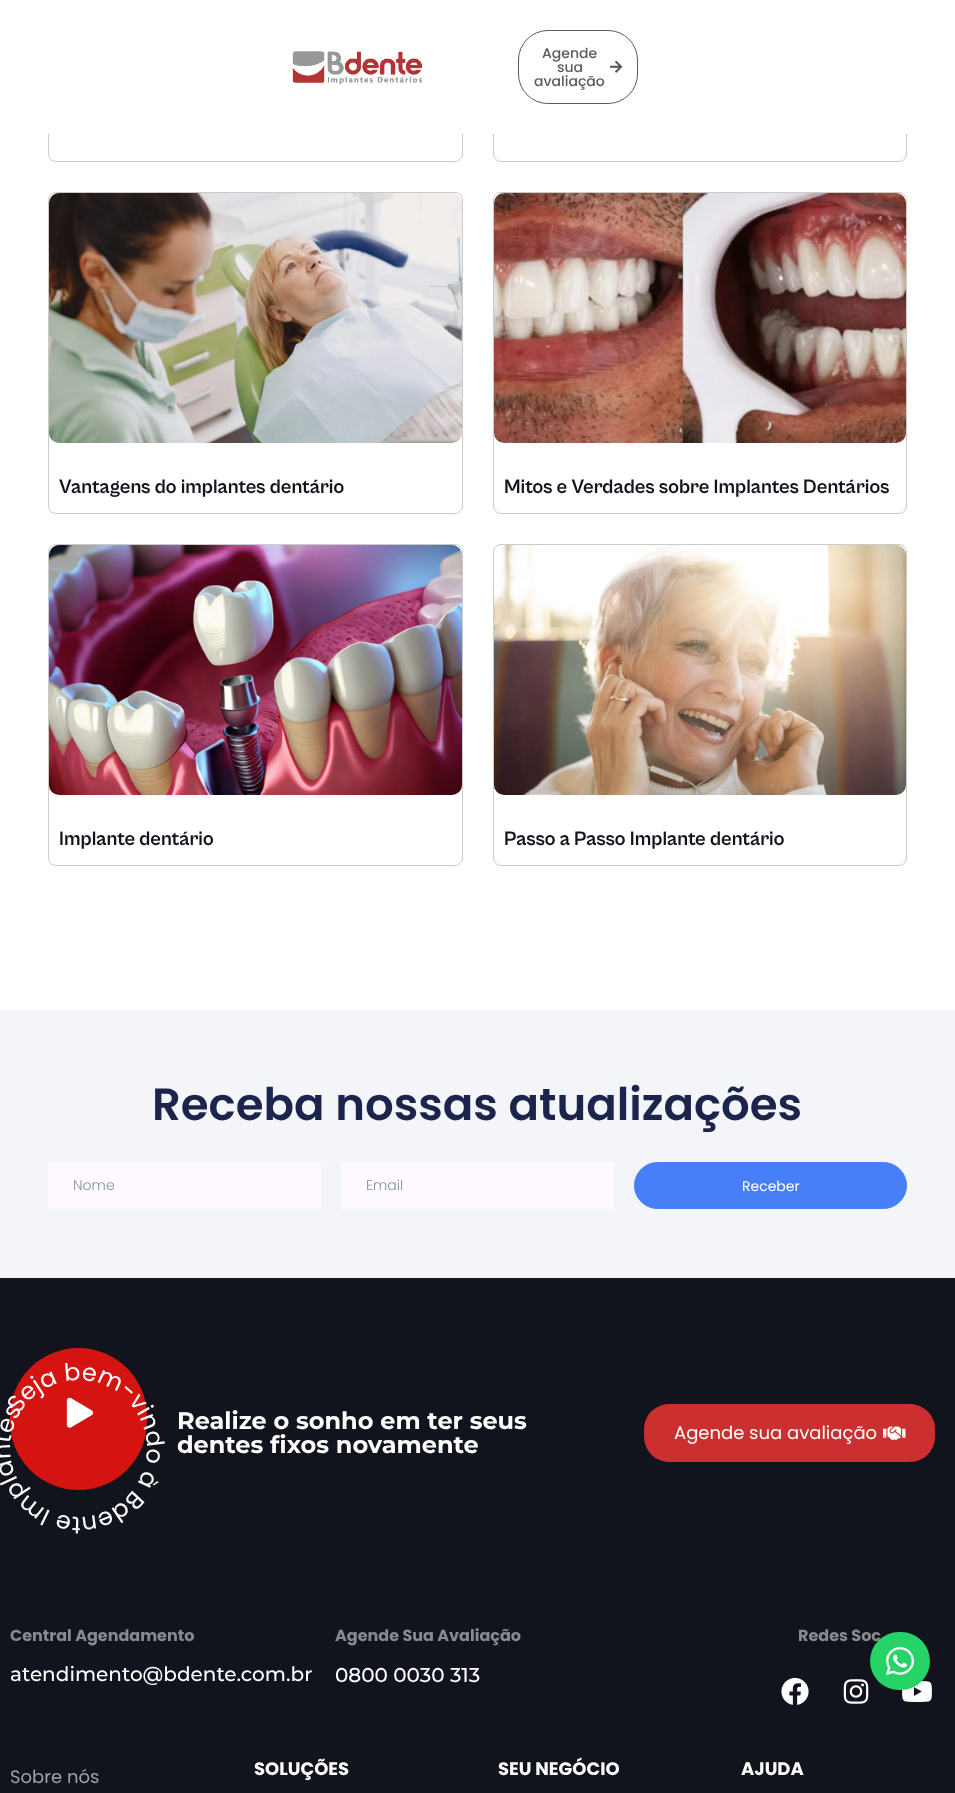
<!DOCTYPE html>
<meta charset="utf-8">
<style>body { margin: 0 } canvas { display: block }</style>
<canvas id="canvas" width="955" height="1793"></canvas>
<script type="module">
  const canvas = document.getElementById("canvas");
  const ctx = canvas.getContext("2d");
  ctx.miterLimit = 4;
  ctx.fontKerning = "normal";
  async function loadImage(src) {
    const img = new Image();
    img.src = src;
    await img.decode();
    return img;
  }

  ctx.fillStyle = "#ffffff";
  ctx.fillRect(0, 0, 955, 1793);
  ctx.beginPath();
  ctx.roundRect(48.5, -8.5, 414, 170, 7.5);
  ctx.strokeStyle = "#cbcbcb";
  ctx.stroke();
  ctx.beginPath();
  ctx.roundRect(493.5, -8.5, 413, 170, 7.5);
  ctx.stroke();
  ctx.fillRect(48, 0, 859, 134);
  ctx.drawImage(await loadImage("img1.png"), 292, 51, 131, 34);
  ctx.beginPath();
  ctx.roundRect(518.5, 30.5, 119, 73, 29.5);
  ctx.strokeStyle = "#595b61";
  ctx.stroke();
  ctx.font = "500 14px Poppins";
  ctx.fillStyle = "#595b61";
  ctx.fillText("Agende", 542, 58);
  ctx.fillText("sua", 557, 72);
  ctx.fillText("avaliação", 534, 86);
  ctx.drawImage(await loadImage("img2.png"), 610, 60, 13, 13);
  ctx.fillStyle = "#12141d";
  ctx.fillRect(0, 1278, 955, 515);
  ctx.font = "bold 16px Poppins";
  ctx.fillStyle = "#898a8e";
  ctx.fillText("Redes Soc", 798, 1641);
  ctx.drawImage(await loadImage("img13.png"), 902, 1681, 30, 21);
  ctx.fillStyle = "#25d366";
  ctx.beginPath();
  ctx.roundRect(870, 1632, 60, 58, 29);
  ctx.fill();
  ctx.drawImage(await loadImage("img3.png"), 886, 1647, 28, 28);
  ctx.beginPath();
  ctx.roundRect(48.5, 192.5, 414, 321, 7.5);
  ctx.strokeStyle = "#cbcbcb";
  ctx.stroke();
  ctx.drawImage(await loadImage("img4.png"), 49, 193, 413, 250);
  ctx.font = "bold 20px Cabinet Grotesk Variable";
  ctx.fillStyle = "#12141d";
  ctx.fillText("Vantagens do implantes dentário", 59, 493);
  ctx.beginPath();
  ctx.roundRect(493.5, 192.5, 413, 321, 7.5);
  ctx.stroke();
  ctx.drawImage(await loadImage("img5.png"), 494, 193, 412, 250);
  ctx.fillText("Mitos e Verdades sobre Implantes Dentários", 504, 493);
  ctx.beginPath();
  ctx.roundRect(48.5, 544.5, 414, 321, 7.5);
  ctx.stroke();
  ctx.drawImage(await loadImage("img6.png"), 49, 545, 413, 250);
  ctx.fillText("Implante dentário", 59, 845);
  ctx.beginPath();
  ctx.roundRect(493.5, 544.5, 413, 321, 7.5);
  ctx.stroke();
  ctx.drawImage(await loadImage("img7.png"), 494, 545, 412, 250);
  ctx.fillText("Passo a Passo Implante dentário", 504, 845);
  ctx.fillStyle = "#f3f5f8";
  ctx.fillRect(0, 1010, 955, 268);
  ctx.font = "600 45px Poppins";
  ctx.fillStyle = "#1c244b";
  ctx.fillText("Receba nossas atualizações", 152, 1120);
  ctx.fillStyle = "#fffaff";
  ctx.fillRect(48, 1162, 273, 47);
  ctx.font = "300 14px Poppins";
  ctx.fillStyle = "#8490a7";
  ctx.fillText("Nome", 73, 1190);
  ctx.fillStyle = "#fffaff";
  ctx.fillRect(341, 1162, 273, 47);
  ctx.fillStyle = "#8490a7";
  ctx.fillText("Email", 366, 1190);
  ctx.fillStyle = "#467ff7";
  ctx.beginPath();
  ctx.roundRect(634.5, 1162.5, 272, 46, 23);
  ctx.fill();
  ctx.strokeStyle = "#467ff7";
  ctx.stroke();
  ctx.font = "14px Poppins";
  ctx.fillStyle = "#ffffff";
  ctx.fillText("Receber", 742, 1191);
  ctx.fillStyle = "#d51311";
  ctx.beginPath();
  ctx.roundRect(10, 1348, 137, 142, 68.5);
  ctx.fill();
  ctx.drawImage(await loadImage("img8.png"), 66, 1397, 28, 31);
  ctx.drawImage(await loadImage("img9.png"), 0, 1363, 165, 171);
  ctx.font = "bold 24px Montserrat";
  ctx.fillStyle = "#ffffff";
  ctx.fillText("Realize o sonho em ter seus", 177, 1429);
  ctx.fillText("dentes fixos novamente", 177, 1453);
  ctx.fillStyle = "#cc2f2f";
  ctx.beginPath();
  ctx.roundRect(644, 1404, 291, 58, 25);
  ctx.fill();
  ctx.font = "18px Poppins";
  ctx.fillStyle = "#ffffff";
  ctx.fillText("Agende sua avaliação", 674, 1439);
  ctx.drawImage(await loadImage("img10.png"), 883, 1426, 23, 14);
  ctx.font = "bold 16px Poppins";
  ctx.fillStyle = "#898a8e";
  ctx.fillText("Central Agendamento", 10, 1641);
  ctx.font = "500 20px Montserrat";
  ctx.fillStyle = "#ffffff";
  ctx.fillText("atendimento@bdente.com.br", 10, 1681);
  ctx.font = "bold 16px Poppins";
  ctx.fillStyle = "#898a8e";
  ctx.fillText("Agende Sua Avaliação", 335, 1641);
  ctx.font = "500 20px Montserrat";
  ctx.fillStyle = "#ffffff";
  ctx.fillText("0800 0030 313", 335, 1682);
  ctx.drawImage(await loadImage("img11.png"), 781, 1677, 28, 28);
  ctx.drawImage(await loadImage("img12.png"), 843, 1679, 26, 25);
  ctx.font = "18px Poppins";
  ctx.fillStyle = "#a0a1a5";
  ctx.fillText("Sobre nós", 10, 1783);
  ctx.font = "bold 18px Poppins";
  ctx.fillStyle = "#ffffff";
  ctx.fillText("SOLUÇÕES", 254, 1775);
  ctx.fillText("SEU NEGÓCIO", 498, 1775);
  ctx.fillText("AJUDA", 741, 1775);
</script>
